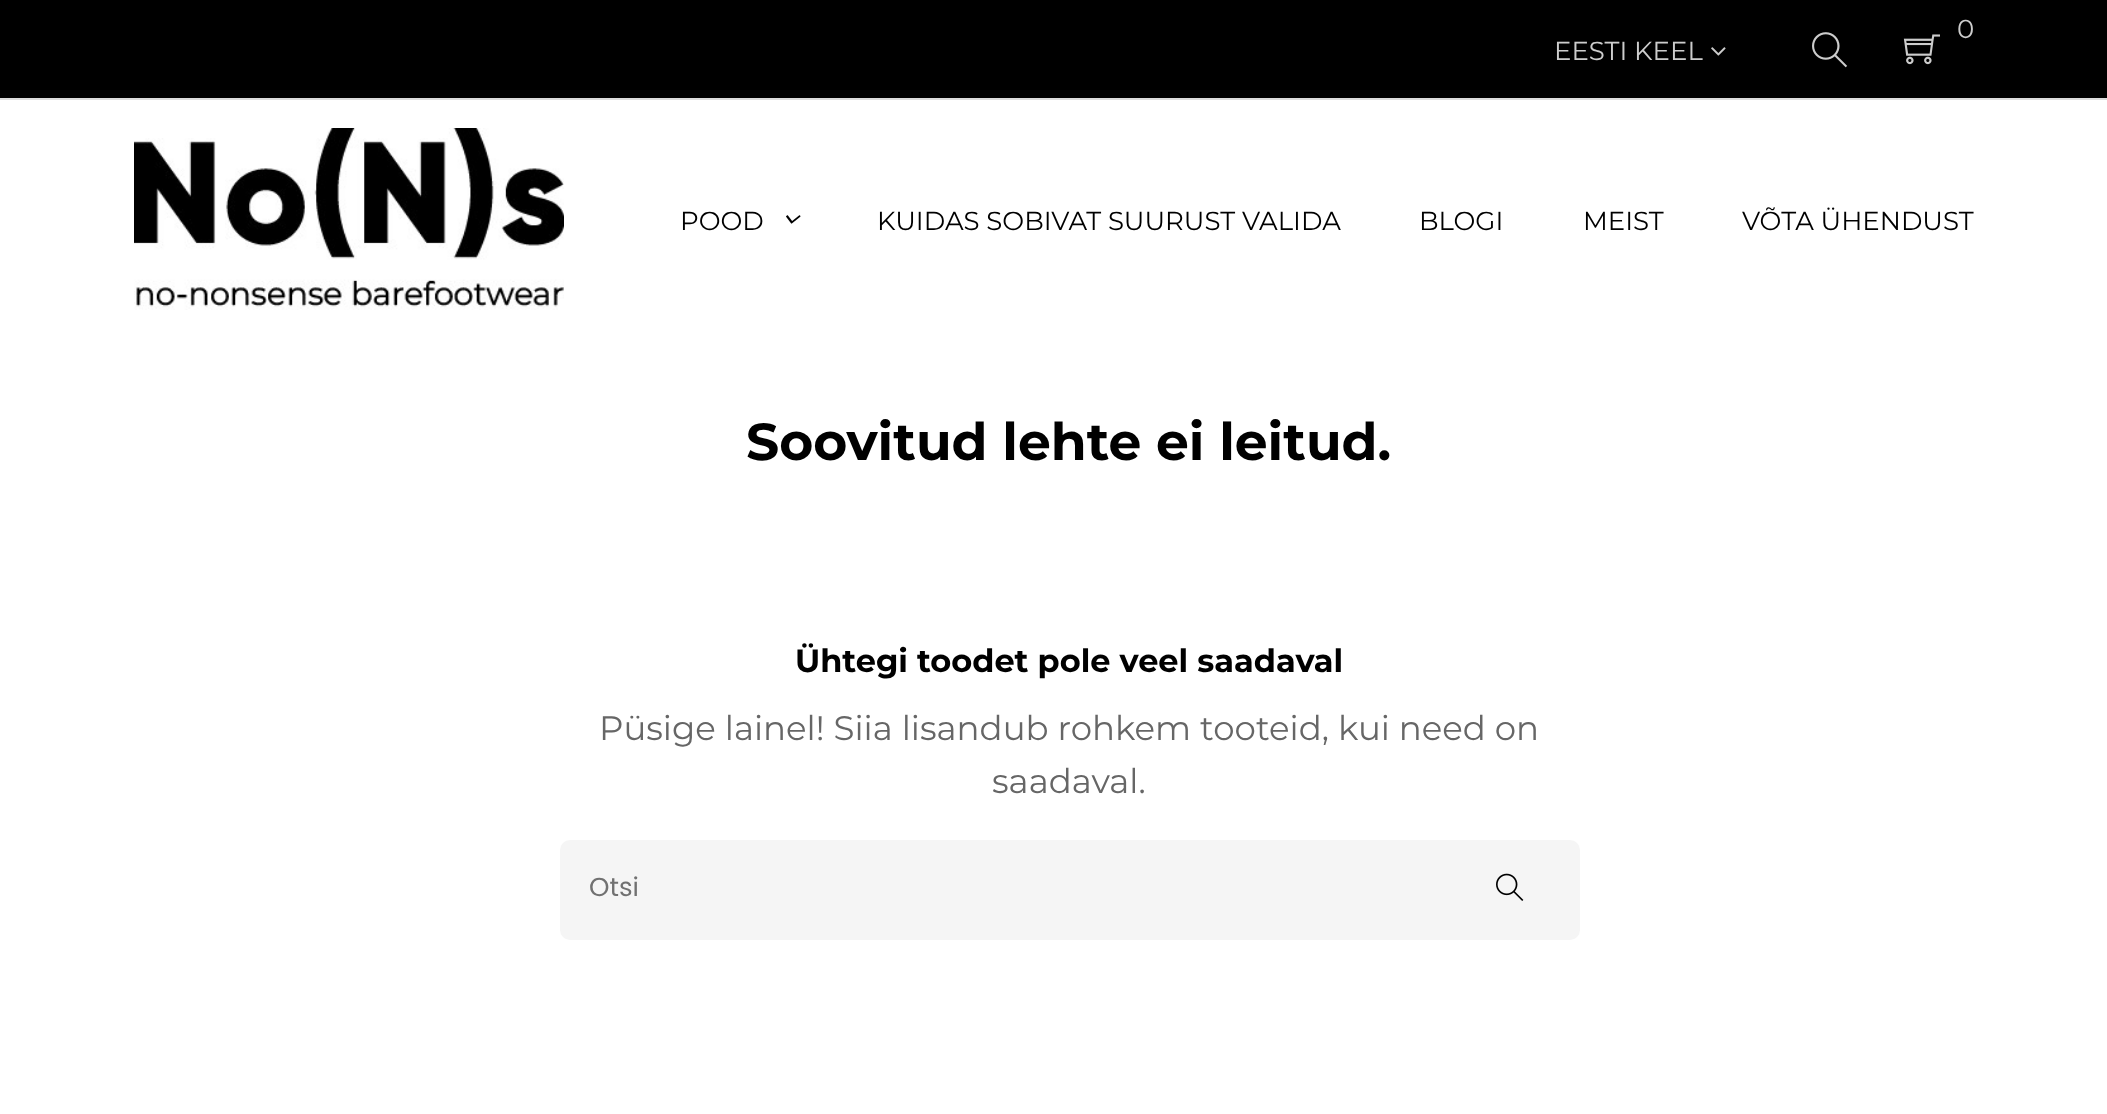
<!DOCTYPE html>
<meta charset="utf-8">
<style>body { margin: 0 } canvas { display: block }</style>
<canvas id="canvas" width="2107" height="1114"></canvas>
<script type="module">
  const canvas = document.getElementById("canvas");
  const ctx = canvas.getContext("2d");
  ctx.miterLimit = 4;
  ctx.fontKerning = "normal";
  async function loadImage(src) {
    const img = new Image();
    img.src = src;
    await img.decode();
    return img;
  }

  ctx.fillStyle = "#ffffff";
  ctx.fillRect(0, 0, 2107, 1114);
  ctx.fillStyle = "#000000";
  ctx.fillRect(0, 0, 2107, 98);
  ctx.fillStyle = "#dddddd";
  ctx.fillRect(0, 98, 2107, 2);
  ctx.font = "26px Montserrat";
  ctx.fillStyle = "#cccccc";
  ctx.fillText("0", 1957, 38);
  ctx.drawImage(await loadImage("img1.png"), 1903, 34, 37, 31);
  ctx.fillText("EESTI KEEL", 1554, 60);
  ctx.drawImage(await loadImage("img2.png"), 1711, 47, 15, 9);
  ctx.drawImage(await loadImage("img3.png"), 1812, 32, 36, 36);
  ctx.drawImage(await loadImage("img4.png"), 134, 128, 430, 182);
  ctx.fillStyle = "#000000";
  ctx.fillText("POOD", 680, 230);
  ctx.drawImage(await loadImage("img5.png"), 786, 215, 15, 9);
  ctx.fillText("KUIDAS SOBIVAT SUURUST VALIDA", 877, 230);
  ctx.fillText("BLOGI", 1419, 230);
  ctx.fillText("MEIST", 1583, 230);
  ctx.fillText("VÕTA ÜHENDUST", 1742, 230);
  ctx.font = "bold 52px Montserrat";
  ctx.fillText("Soovitud lehte ei leitud.", 746, 460);
  ctx.font = "bold 32px Montserrat";
  ctx.fillText("Ühtegi toodet pole veel saadaval", 795, 672);
  ctx.font = "34px Montserrat";
  ctx.fillStyle = "#666666";
  ctx.fillText("Püsige lainel! Siia lisandub rohkem tooteid, kui need on", 599, 740);
  ctx.fillText("saadaval.", 992, 793);
  ctx.fillStyle = "#f5f5f5";
  ctx.beginPath();
  ctx.roundRect(560, 840, 1020, 100, 10);
  ctx.fill();
  ctx.font = "26px Poppins";
  ctx.fillStyle = "#717171";
  ctx.fillText("Otsi", 589, 896);
  ctx.drawImage(await loadImage("img6.png"), 1496, 873, 28, 28);
</script>
